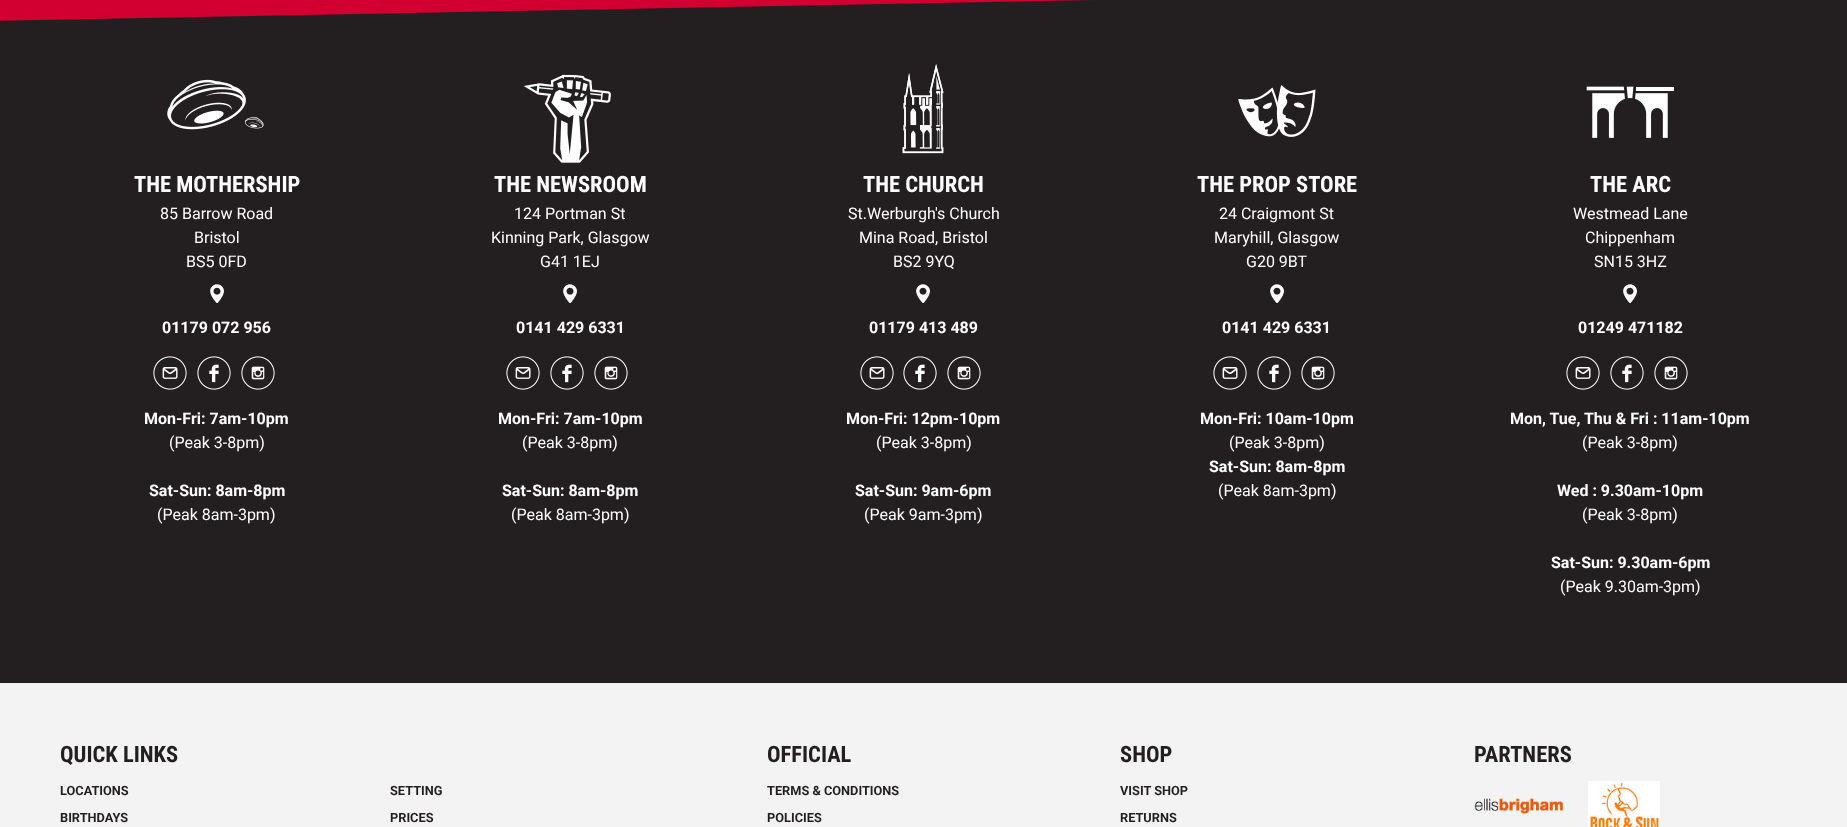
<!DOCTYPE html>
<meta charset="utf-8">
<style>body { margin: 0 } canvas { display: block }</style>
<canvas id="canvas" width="1847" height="827"></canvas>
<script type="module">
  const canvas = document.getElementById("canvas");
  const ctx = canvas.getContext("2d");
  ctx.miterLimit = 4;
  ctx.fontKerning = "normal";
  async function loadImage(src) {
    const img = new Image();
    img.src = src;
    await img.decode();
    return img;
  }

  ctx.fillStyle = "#231f20";
  ctx.fillRect(0, 0, 1847, 827);
  ctx.fillStyle = "#d20030";
  ctx.beginPath();
  ctx.moveTo(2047, -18);
  ctx.lineTo(-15, 21);
  ctx.lineTo(-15, -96);
  ctx.lineTo(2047, -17);
  ctx.closePath();
  ctx.fill();
  ctx.drawImage(await loadImage("img1.png"), 167, 79, 97, 51);
  ctx.font = "bold 22.5px Roboto Condensed";
  ctx.fillStyle = "#ffffff";
  ctx.fillText("THE MOTHERSHIP", 134, 192);
  ctx.font = "16px Roboto";
  ctx.fillText("85 Barrow Road", 160, 219);
  ctx.fillText("Bristol", 194, 243);
  ctx.fillText("BS5 0FD", 186, 267);
  ctx.drawImage(await loadImage("img2.png"), 210, 284, 14, 19);
  ctx.font = "bold 16px Roboto";
  ctx.fillText("01179 072 956", 162, 333);
  ctx.drawImage(await loadImage("img3.png"), 153, 356, 34, 34);
  ctx.drawImage(await loadImage("img4.png"), 197, 356, 34, 34);
  ctx.drawImage(await loadImage("img5.png"), 241, 356, 34, 34);
  ctx.fillText("Mon-Fri: 7am-10pm", 144, 424);
  ctx.font = "16px Roboto";
  ctx.fillText("(Peak 3-8pm)", 169, 448);
  ctx.font = "bold 16px Roboto";
  ctx.fillText("Sat-Sun: 8am-8pm", 149, 496);
  ctx.font = "16px Roboto";
  ctx.fillText("(Peak 8am-3pm)", 157, 520);
  ctx.drawImage(await loadImage("img6.png"), 523, 74, 88, 89);
  ctx.font = "bold 22.5px Roboto Condensed";
  ctx.fillText("THE NEWSROOM", 494, 192);
  ctx.font = "16px Roboto";
  ctx.fillText("124 Portman St", 514, 219);
  ctx.fillText("Kinning Park, Glasgow", 491, 243);
  ctx.fillText("G41 1EJ", 540, 267);
  ctx.drawImage(await loadImage("img2.png"), 563, 284, 14, 19);
  ctx.font = "bold 16px Roboto";
  ctx.fillText("0141 429 6331", 516, 333);
  ctx.drawImage(await loadImage("img3.png"), 506, 356, 34, 34);
  ctx.drawImage(await loadImage("img4.png"), 550, 356, 34, 34);
  ctx.drawImage(await loadImage("img5.png"), 594, 356, 34, 34);
  ctx.fillText("Mon-Fri: 7am-10pm", 498, 424);
  ctx.font = "16px Roboto";
  ctx.fillText("(Peak 3-8pm)", 522, 448);
  ctx.font = "bold 16px Roboto";
  ctx.fillText("Sat-Sun: 8am-8pm", 502, 496);
  ctx.font = "16px Roboto";
  ctx.fillText("(Peak 8am-3pm)", 511, 520);
  ctx.drawImage(await loadImage("img7.png"), 902, 64, 42, 90);
  ctx.font = "bold 22.5px Roboto Condensed";
  ctx.fillText("THE CHURCH", 863, 192);
  ctx.font = "16px Roboto";
  ctx.fillText("St.Werburgh's Church", 848, 219);
  ctx.fillText("Mina Road, Bristol", 859, 243);
  ctx.fillText("BS2 9YQ", 893, 267);
  ctx.drawImage(await loadImage("img2.png"), 916, 284, 14, 19);
  ctx.font = "bold 16px Roboto";
  ctx.fillText("01179 413 489", 869, 333);
  ctx.drawImage(await loadImage("img3.png"), 860, 356, 34, 34);
  ctx.drawImage(await loadImage("img4.png"), 903, 356, 34, 34);
  ctx.drawImage(await loadImage("img5.png"), 947, 356, 34, 34);
  ctx.fillText("Mon-Fri: 12pm-10pm", 846, 424);
  ctx.font = "16px Roboto";
  ctx.fillText("(Peak 3-8pm)", 876, 448);
  ctx.font = "bold 16px Roboto";
  ctx.fillText("Sat-Sun: 9am-6pm", 855, 496);
  ctx.font = "16px Roboto";
  ctx.fillText("(Peak 9am-3pm)", 864, 520);
  ctx.drawImage(await loadImage("img8.png"), 1238, 85, 78, 52);
  ctx.font = "bold 22.5px Roboto Condensed";
  ctx.fillText("THE PROP STORE", 1197, 192);
  ctx.font = "16px Roboto";
  ctx.fillText("24 Craigmont St", 1219, 219);
  ctx.fillText("Maryhill, Glasgow", 1214, 243);
  ctx.fillText("G20 9BT", 1246, 267);
  ctx.drawImage(await loadImage("img2.png"), 1270, 284, 14, 19);
  ctx.font = "bold 16px Roboto";
  ctx.fillText("0141 429 6331", 1222, 333);
  ctx.drawImage(await loadImage("img3.png"), 1213, 356, 34, 34);
  ctx.drawImage(await loadImage("img4.png"), 1257, 356, 34, 34);
  ctx.drawImage(await loadImage("img5.png"), 1301, 356, 34, 34);
  ctx.fillText("Mon-Fri: 10am-10pm", 1200, 424);
  ctx.font = "16px Roboto";
  ctx.fillText("(Peak 3-8pm)", 1229, 448);
  ctx.font = "bold 16px Roboto";
  ctx.fillText("Sat-Sun: 8am-8pm", 1209, 472);
  ctx.font = "16px Roboto";
  ctx.fillText("(Peak 8am-3pm)", 1218, 496);
  ctx.drawImage(await loadImage("img9.png"), 1586, 86, 88, 52);
  ctx.font = "bold 22.5px Roboto Condensed";
  ctx.fillText("THE ARC", 1590, 192);
  ctx.font = "16px Roboto";
  ctx.fillText("Westmead Lane", 1573, 219);
  ctx.fillText("Chippenham", 1585, 243);
  ctx.fillText("SN15 3HZ", 1594, 267);
  ctx.drawImage(await loadImage("img2.png"), 1623, 284, 14, 19);
  ctx.font = "bold 16px Roboto";
  ctx.fillText("01249 471182", 1578, 333);
  ctx.drawImage(await loadImage("img3.png"), 1566, 356, 34, 34);
  ctx.drawImage(await loadImage("img4.png"), 1610, 356, 34, 34);
  ctx.drawImage(await loadImage("img5.png"), 1654, 356, 34, 34);
  ctx.fillText("Mon, Tue, Thu & Fri : 11am-10pm", 1510, 424);
  ctx.font = "16px Roboto";
  ctx.fillText("(Peak 3-8pm)", 1582, 448);
  ctx.font = "bold 16px Roboto";
  ctx.fillText("Wed : 9.30am-10pm", 1557, 496);
  ctx.font = "16px Roboto";
  ctx.fillText("(Peak 3-8pm)", 1582, 520);
  ctx.font = "bold 16px Roboto";
  ctx.fillText("Sat-Sun: 9.30am-6pm", 1551, 568);
  ctx.font = "16px Roboto";
  ctx.fillText("(Peak 9.30am-3pm)", 1560, 592);
  ctx.fillStyle = "#f3f3f3";
  ctx.fillRect(0, 683, 1847, 144);
  ctx.font = "bold 22.5px Roboto Condensed";
  ctx.fillStyle = "#231f20";
  ctx.fillText("QUICK LINKS", 60, 762);
  ctx.font = "bold 12.75px Roboto";
  ctx.fillText("LOCATIONS", 60, 795);
  ctx.fillText("SETTING", 390, 795);
  ctx.fillText("BIRTHDAYS", 60, 822);
  ctx.fillText("PRICES", 390, 822);
  ctx.font = "bold 22.5px Roboto Condensed";
  ctx.fillText("OFFICIAL", 767, 762);
  ctx.font = "bold 12.75px Roboto";
  ctx.fillText("TERMS & CONDITIONS", 767, 795);
  ctx.fillText("POLICIES", 767, 822);
  ctx.font = "bold 22.5px Roboto Condensed";
  ctx.fillText("SHOP", 1120, 762);
  ctx.font = "bold 12.75px Roboto";
  ctx.fillText("VISIT SHOP", 1120, 795);
  ctx.fillText("RETURNS", 1120, 822);
  ctx.font = "bold 22.5px Roboto Condensed";
  ctx.fillText("PARTNERS", 1474, 762);
  ctx.drawImage(await loadImage("img10.png"), 1474, 793, 90, 25);
  ctx.drawImage(await loadImage("img11.png"), 1588, 781, 72, 46);
</script>
